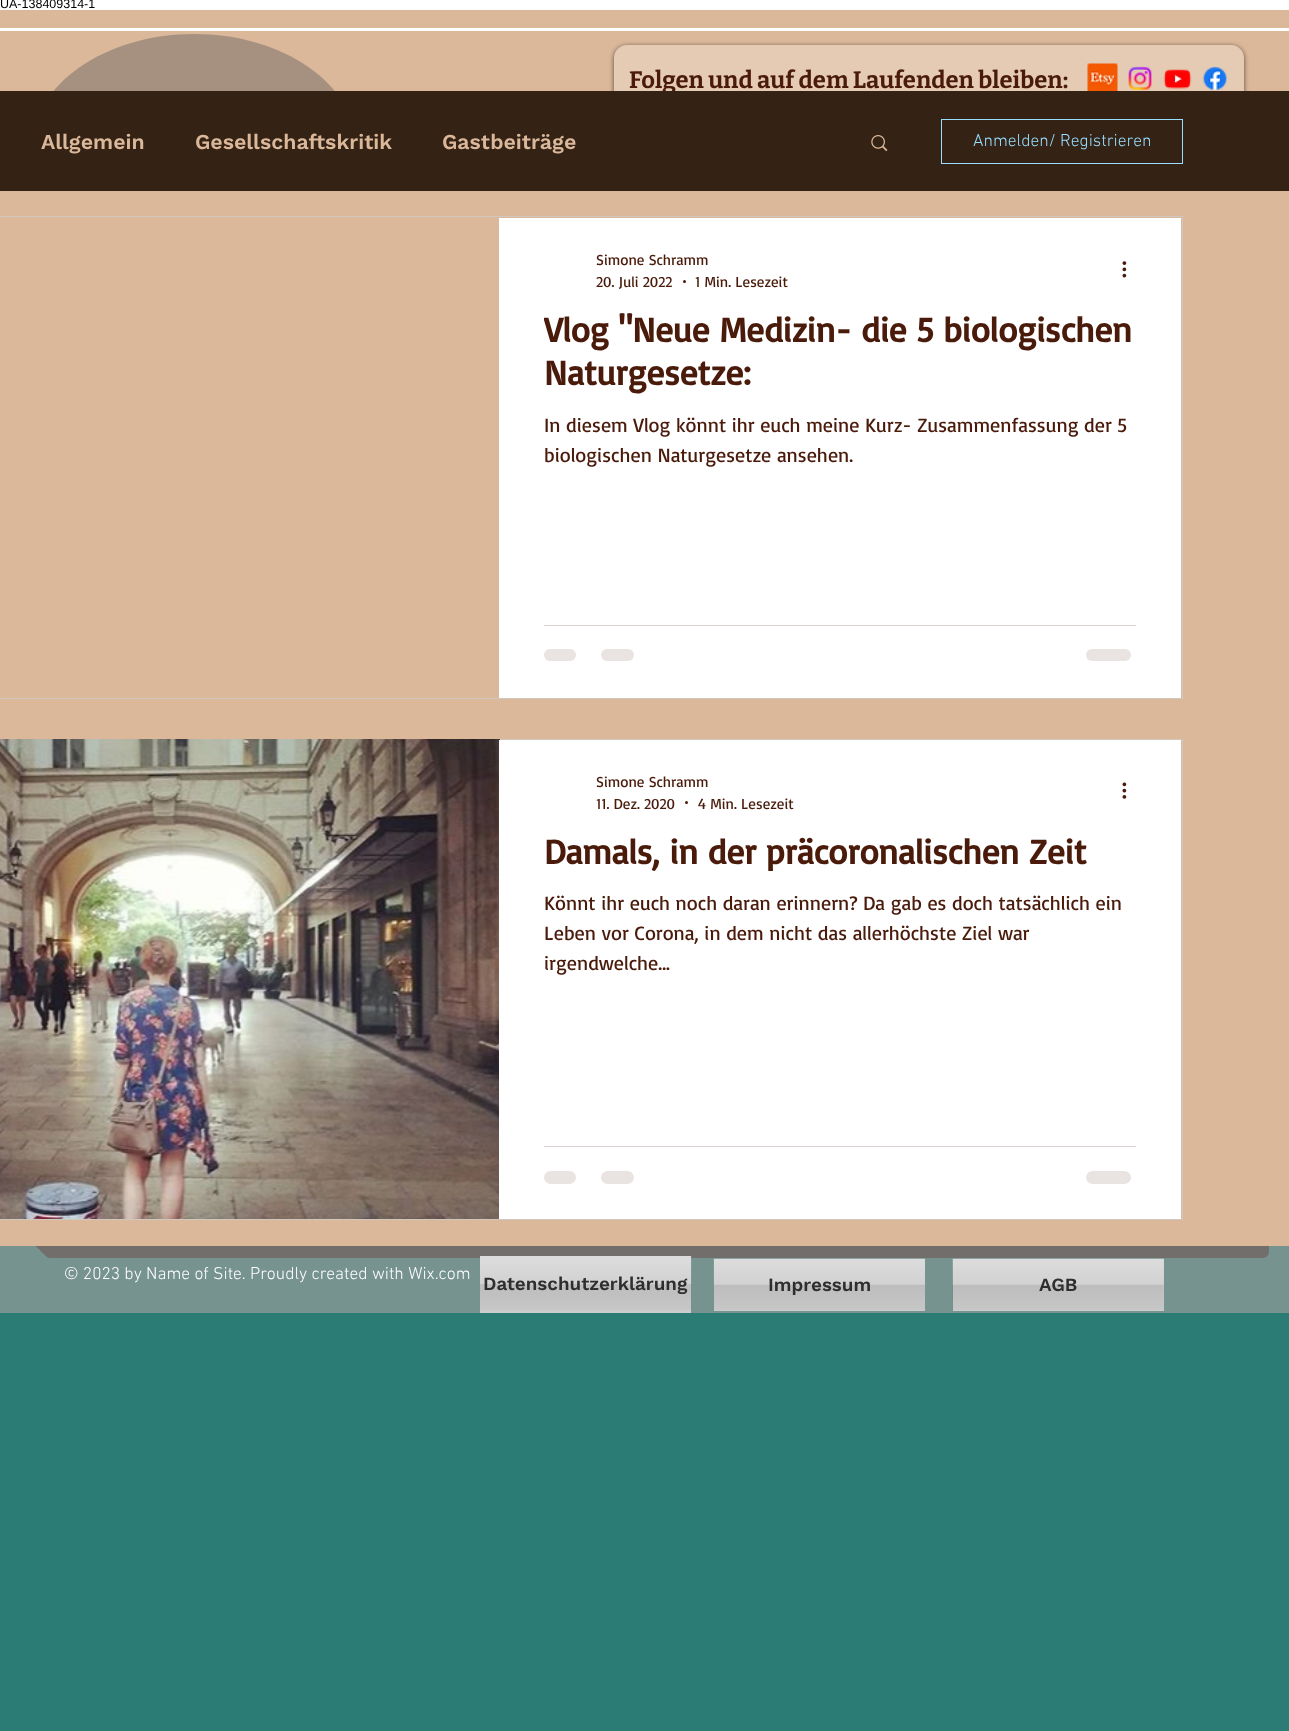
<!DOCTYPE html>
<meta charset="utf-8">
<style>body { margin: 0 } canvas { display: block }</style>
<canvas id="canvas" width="1289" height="1731"></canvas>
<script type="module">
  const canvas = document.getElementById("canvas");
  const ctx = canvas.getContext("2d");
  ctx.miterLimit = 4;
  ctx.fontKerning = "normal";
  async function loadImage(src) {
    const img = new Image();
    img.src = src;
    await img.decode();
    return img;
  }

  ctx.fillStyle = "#ffffff";
  ctx.fillRect(0, 0, 1289, 1731);
  ctx.font = "12.5px Liberation Sans";
  ctx.fillStyle = "#000000";
  ctx.fillText("UA-138409314-1", 0, 8);
  ctx.fillStyle = "#dbb89a";
  ctx.fillRect(0, 10, 1289, 81);
  ctx.fillStyle = "#ffffff";
  ctx.fillRect(0, 28, 1289, 3);
  ctx.fillStyle = "#a69180";
  ctx.beginPath();
  ctx.moveTo(356, 147);
  ctx.bezierCurveTo(356, 210, 284, 261, 194, 261);
  ctx.bezierCurveTo(105, 261, 32, 210, 32, 147);
  ctx.bezierCurveTo(32, 85, 105, 34, 194, 34);
  ctx.bezierCurveTo(284, 34, 356, 85, 356, 147);
  ctx.closePath();
  ctx.fill();
  ctx.save();
  ctx.beginPath();
  ctx.moveTo(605, 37);
  ctx.lineTo(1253, 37);
  ctx.lineTo(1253, 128);
  ctx.lineTo(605, 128);
  ctx.closePath();
  ctx.moveTo(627, 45);
  ctx.lineTo(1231, 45);
  ctx.bezierCurveTo(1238, 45, 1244, 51, 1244, 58);
  ctx.lineTo(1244, 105);
  ctx.bezierCurveTo(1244, 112, 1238, 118, 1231, 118);
  ctx.lineTo(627, 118);
  ctx.bezierCurveTo(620, 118, 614, 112, 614, 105);
  ctx.lineTo(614, 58);
  ctx.bezierCurveTo(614, 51, 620, 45, 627, 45);
  ctx.closePath();
  ctx.clip("evenodd");
  ctx.fillStyle = "rgba(0, 0, 0, 0.6)";
  ctx.filter = "blur(2.5px)";
  ctx.beginPath();
  ctx.roundRect(614, 46, 630, 73, 13);
  ctx.fill();
  ctx.filter = "none";
  ctx.restore();
  ctx.fillStyle = "rgba(243, 226, 216, 0.42)";
  ctx.beginPath();
  ctx.roundRect(614, 45, 630, 73, 13);
  ctx.fill();
  ctx.font = "100 23.75px Bitter";
  ctx.fillStyle = "#4a1b0b";
  ctx.fillText("Folgen und auf dem Laufenden bleiben:", 629, 88);
  ctx.drawImage(await loadImage("img1.png"), 1087, 63, 31, 28);
  ctx.drawImage(await loadImage("img2.png"), 1128, 66, 24, 24);
  ctx.drawImage(await loadImage("img3.png"), 1163, 69, 29, 20);
  ctx.drawImage(await loadImage("img4.png"), 1202, 66, 25, 24);
  ctx.fillStyle = "#2b7c74";
  ctx.fillRect(0, 1246, 1289, 485);
  ctx.fillStyle = "#1a110b";
  ctx.beginPath();
  ctx.moveTo(44, 1246);
  ctx.lineTo(44, 1252);
  ctx.bezierCurveTo(44, 1255, 47, 1258, 50, 1258);
  ctx.lineTo(1263, 1258);
  ctx.bezierCurveTo(1266, 1258, 1269, 1255, 1269, 1252);
  ctx.lineTo(1269, 491);
  ctx.bezierCurveTo(1269, 488, 1266, 485, 1263, 485);
  ctx.lineTo(1258, 485);
  ctx.lineTo(1258, 1240);
  ctx.bezierCurveTo(1258, 1243, 1255, 1246, 1251, 1246);
  ctx.closePath();
  ctx.fill();
  ctx.beginPath();
  ctx.moveTo(41, 1246);
  ctx.lineTo(41, 1249);
  ctx.bezierCurveTo(41, 1252, 44, 1255, 47, 1255);
  ctx.lineTo(1260, 1255);
  ctx.bezierCurveTo(1263, 1255, 1266, 1252, 1266, 1249);
  ctx.lineTo(1266, 489);
  ctx.bezierCurveTo(1266, 486, 1263, 483, 1260, 483);
  ctx.lineTo(1258, 483);
  ctx.lineTo(1258, 1240);
  ctx.bezierCurveTo(1258, 1243, 1255, 1246, 1251, 1246);
  ctx.closePath();
  ctx.fill();
  ctx.beginPath();
  ctx.moveTo(39, 1246);
  ctx.lineTo(39, 1247);
  ctx.bezierCurveTo(39, 1250, 42, 1253, 45, 1253);
  ctx.lineTo(1258, 1253);
  ctx.bezierCurveTo(1261, 1253, 1264, 1250, 1264, 1247);
  ctx.lineTo(1264, 486);
  ctx.bezierCurveTo(1264, 483, 1261, 480, 1258, 480);
  ctx.lineTo(1258, 1240);
  ctx.bezierCurveTo(1258, 1243, 1255, 1246, 1251, 1246);
  ctx.closePath();
  ctx.fill();
  ctx.beginPath();
  ctx.moveTo(36, 1246);
  ctx.bezierCurveTo(37, 1248, 39, 1250, 42, 1250);
  ctx.lineTo(1255, 1250);
  ctx.bezierCurveTo(1258, 1250, 1261, 1247, 1261, 1244);
  ctx.lineTo(1261, 484);
  ctx.bezierCurveTo(1261, 482, 1259, 479, 1257, 478);
  ctx.lineTo(1258, 1240);
  ctx.bezierCurveTo(1258, 1243, 1255, 1246, 1251, 1246);
  ctx.lineTo(39, 1246);
  ctx.closePath();
  ctx.fill();
  ctx.beginPath();
  ctx.moveTo(35, 1245);
  ctx.bezierCurveTo(36, 1247, 38, 1248, 40, 1248);
  ctx.lineTo(1253, 1248);
  ctx.bezierCurveTo(1256, 1248, 1259, 1245, 1259, 1242);
  ctx.lineTo(1259, 481);
  ctx.bezierCurveTo(1259, 479, 1258, 477, 1256, 476);
  ctx.bezierCurveTo(1257, 477, 1258, 478, 1258, 480);
  ctx.lineTo(1258, 1240);
  ctx.bezierCurveTo(1258, 1243, 1255, 1246, 1251, 1246);
  ctx.lineTo(39, 1246);
  ctx.bezierCurveTo(37, 1246, 36, 1246, 35, 1245);
  ctx.closePath();
  ctx.fill();
  ctx.fillStyle = "#dbb89a";
  ctx.fillRect(0, 191, 1289, 1055);
  ctx.fillStyle = "#342215";
  ctx.fillRect(0, 91, 1289, 100);
  ctx.font = "600 21.25px Work Sans";
  ctx.fillStyle = "#dbb89a";
  ctx.fillText("Allgemein", 41, 149);
  ctx.fillText("Gesellschaftskritik", 195, 149);
  ctx.fillText("Gastbeiträge", 442, 149);
  ctx.drawImage(await loadImage("img5.png"), 871, 135, 17, 17);
  ctx.strokeStyle = "#97deff";
  ctx.strokeRect(941.5, 119.5, 241, 44);
  ctx.font = "300 17.5px 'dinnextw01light'";
  ctx.fillStyle = "#97deff";
  ctx.fillText("Anmelden/ Registrieren", 973, 146);
  ctx.strokeStyle = "#d0c7c0";
  ctx.strokeRect(-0.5, 216.5, 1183, 482);
  ctx.fillStyle = "#ffffff";
  ctx.fillRect(499, 218, 682, 480);
  ctx.font = "15px Basic";
  ctx.fillStyle = "#4a1b0b";
  ctx.fillText("Simone Schramm", 596, 265);
  ctx.fillText("20. Juli 2022", 596, 287);
  ctx.beginPath();
  ctx.arc(684.5, 281.5, 1.5, 0, Math.PI * 2);
  ctx.fill();
  ctx.fillText("1 Min. Lesezeit", 695, 287);
  ctx.drawImage(await loadImage("img6.png"), 1122, 261, 5, 17);
  ctx.save();
  ctx.beginPath();
  ctx.rect(544, 306, 592, 88);
  ctx.clip();
  ctx.font = "bold 35px Basic";
  ctx.fillText("Vlog \"Neue Medizin- die 5 biologischen", 544, 342);
  ctx.restore();
  ctx.font = "bold 35px Basic";
  ctx.fillText("Naturgesetze:", 544, 385);
  ctx.font = "20px Basic";
  ctx.fillText("In diesem Vlog könnt ihr euch meine Kurz- Zusammenfassung der 5", 544, 432);
  ctx.fillText("biologischen Naturgesetze ansehen.", 544, 462);
  ctx.fillStyle = "#dbd1ce";
  ctx.fillRect(544, 625, 592, 1);
  ctx.fillStyle = "#e9e4e2";
  ctx.beginPath();
  ctx.roundRect(544, 649, 32, 12, 6);
  ctx.fill();
  ctx.beginPath();
  ctx.roundRect(601, 649, 33, 12, 6);
  ctx.fill();
  ctx.beginPath();
  ctx.roundRect(1086, 649, 45, 12, 6);
  ctx.fill();
  ctx.strokeRect(-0.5, 739.5, 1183, 480);
  ctx.drawImage(await loadImage("img8.png"), 499, 739, 1, 1);
  ctx.drawImage(await loadImage("img7.png"), 0, 739, 500, 480);
  ctx.fillStyle = "#ffffff";
  ctx.fillRect(499, 740, 682, 479);
  ctx.font = "15px Basic";
  ctx.fillStyle = "#4a1b0b";
  ctx.fillText("Simone Schramm", 596, 787);
  ctx.fillText("11. Dez. 2020", 596, 809);
  ctx.beginPath();
  ctx.arc(686.5, 802.5, 1.5, 0, Math.PI * 2);
  ctx.fill();
  ctx.fillText("4 Min. Lesezeit", 698, 809);
  ctx.drawImage(await loadImage("img9.png"), 1122, 782, 5, 17);
  ctx.font = "bold 35px Basic";
  ctx.fillText("Damals, in der präcoronalischen Zeit", 544, 864);
  ctx.font = "20px Basic";
  ctx.fillText("Könnt ihr euch noch daran erinnern? Da gab es doch tatsächlich ein", 544, 910);
  ctx.fillText("Leben vor Corona, in dem nicht das allerhöchste Ziel war", 544, 940);
  ctx.fillText("irgendwelche...", 544, 970);
  ctx.fillStyle = "#dbd1ce";
  ctx.fillRect(544, 1146, 592, 1);
  ctx.fillStyle = "#e9e4e2";
  ctx.beginPath();
  ctx.roundRect(544, 1171, 32, 13, 6.5);
  ctx.fill();
  ctx.beginPath();
  ctx.roundRect(601, 1171, 33, 13, 6.5);
  ctx.fill();
  ctx.beginPath();
  ctx.roundRect(1086, 1171, 45, 13, 6.5);
  ctx.fill();
  ctx.fillStyle = "rgba(160, 160, 159, 0.66)";
  ctx.fillRect(0, 1246, 1289, 67);
  ctx.font = "300 17.5px 'dinnextw01light'";
  ctx.fillStyle = "#ffffff";
  ctx.fillText("© 2023 by Name of Site. Proudly created with Wix.com", 64, 1279);
  ctx.fillStyle = "#cccccc";
  ctx.fillRect(480, 1256, 211, 57);
  ctx.drawImage(await loadImage("img10.png"), 480, 1256, 212, 54);
  ctx.font = "600 18.75px Work Sans";
  ctx.fillStyle = "#2f2e2e";
  ctx.fillText("Datenschutzerklärung", 483, 1290);
  ctx.fillStyle = "#cccccc";
  ctx.fillRect(714, 1259, 211, 52);
  ctx.drawImage(await loadImage("img11.png"), 713, 1258, 212, 52);
  ctx.fillStyle = "#2f2e2e";
  ctx.fillText("Impressum", 768, 1291);
  ctx.fillStyle = "#cccccc";
  ctx.fillRect(953, 1259, 211, 52);
  ctx.drawImage(await loadImage("img12.png"), 952, 1258, 212, 52);
  ctx.fillStyle = "#2f2e2e";
  ctx.fillText("AGB", 1039, 1291);
</script>
